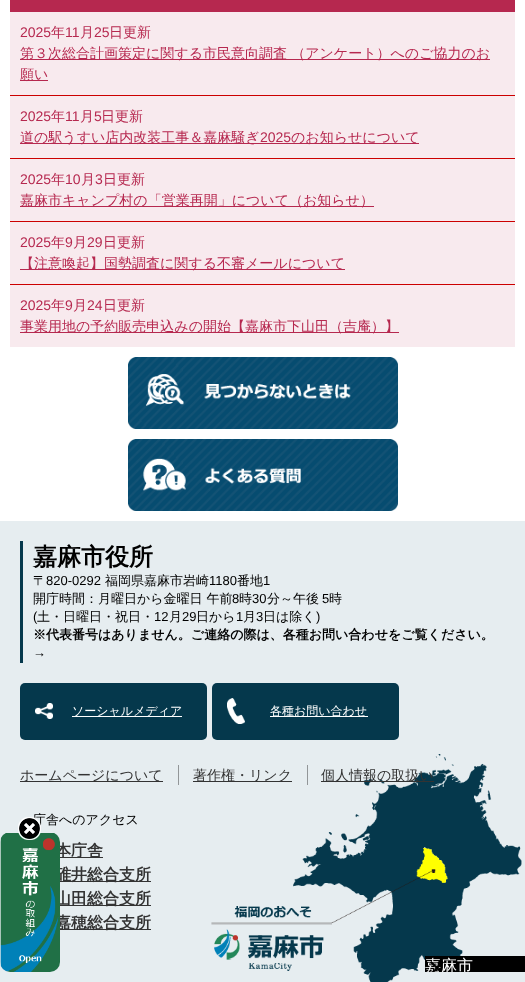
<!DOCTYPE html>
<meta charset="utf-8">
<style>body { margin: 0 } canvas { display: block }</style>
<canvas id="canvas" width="525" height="982"></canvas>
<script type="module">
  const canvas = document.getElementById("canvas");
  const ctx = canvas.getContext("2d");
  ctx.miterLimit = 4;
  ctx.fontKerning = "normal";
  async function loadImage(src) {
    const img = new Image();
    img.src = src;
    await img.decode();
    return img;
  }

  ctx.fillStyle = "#ffffff";
  ctx.fillRect(0, 0, 525, 982);
  ctx.fillStyle = "#b6284f";
  ctx.fillRect(10, 0, 505, 12);
  ctx.fillStyle = "#f8eaee";
  ctx.fillRect(10, 12, 505, 335);
  ctx.fillStyle = "#cc0000";
  ctx.fillRect(10, 95, 505, 1);
  ctx.font = "14px Liberation Sans";
  ctx.fillStyle = "#b6284f";
  ctx.fillText("2025", 20, 37);
  ctx.font = "500 14px WenQuanYi Zen Hei";
  ctx.fillText("年", 51, 37);
  ctx.font = "14px Liberation Sans";
  ctx.fillText("11", 65, 37);
  ctx.font = "500 14px WenQuanYi Zen Hei";
  ctx.fillText("月", 80, 37);
  ctx.font = "14px Liberation Sans";
  ctx.fillText("25", 94, 37);
  ctx.font = "500 14px WenQuanYi Zen Hei";
  ctx.fillText("日更新", 109, 37);
  ctx.fillRect(20, 59, 470, 1);
  ctx.fillText("第３次総合計画策定に関する市民意向調査 （アンケート）へのご協力のお", 20, 58);
  ctx.fillRect(20, 80, 28, 1);
  ctx.fillText("願い", 20, 79);
  ctx.fillStyle = "#cc0000";
  ctx.fillRect(10, 158, 505, 1);
  ctx.font = "14px Liberation Sans";
  ctx.fillStyle = "#b6284f";
  ctx.fillText("2025", 20, 121);
  ctx.font = "500 14px WenQuanYi Zen Hei";
  ctx.fillText("年", 51, 121);
  ctx.font = "14px Liberation Sans";
  ctx.fillText("11", 65, 121);
  ctx.font = "500 14px WenQuanYi Zen Hei";
  ctx.fillText("月", 80, 121);
  ctx.font = "14px Liberation Sans";
  ctx.fillText("5", 94, 121);
  ctx.font = "500 14px WenQuanYi Zen Hei";
  ctx.fillText("日更新", 101, 121);
  ctx.fillRect(20, 143, 399, 1);
  ctx.fillText("道の駅うすい店内改装工事＆嘉麻騒ぎ", 20, 142);
  ctx.font = "14px Liberation Sans";
  ctx.fillText("2025", 260, 142);
  ctx.font = "500 14px WenQuanYi Zen Hei";
  ctx.fillText("のお知らせについて", 291, 142);
  ctx.fillStyle = "#cc0000";
  ctx.fillRect(10, 221, 505, 1);
  ctx.font = "14px Liberation Sans";
  ctx.fillStyle = "#b6284f";
  ctx.fillText("2025", 20, 184);
  ctx.font = "500 14px WenQuanYi Zen Hei";
  ctx.fillText("年", 51, 184);
  ctx.font = "14px Liberation Sans";
  ctx.fillText("10", 65, 184);
  ctx.font = "500 14px WenQuanYi Zen Hei";
  ctx.fillText("月", 81, 184);
  ctx.font = "14px Liberation Sans";
  ctx.fillText("3", 95, 184);
  ctx.font = "500 14px WenQuanYi Zen Hei";
  ctx.fillText("日更新", 103, 184);
  ctx.fillRect(20, 206, 354, 1);
  ctx.fillText("嘉麻市キャンプ村の「営業再開」について（お知らせ）", 20, 205);
  ctx.fillStyle = "#cc0000";
  ctx.fillRect(10, 284, 505, 1);
  ctx.font = "14px Liberation Sans";
  ctx.fillStyle = "#b6284f";
  ctx.fillText("2025", 20, 247);
  ctx.font = "500 14px WenQuanYi Zen Hei";
  ctx.fillText("年", 51, 247);
  ctx.font = "14px Liberation Sans";
  ctx.fillText("9", 65, 247);
  ctx.font = "500 14px WenQuanYi Zen Hei";
  ctx.fillText("月", 73, 247);
  ctx.font = "14px Liberation Sans";
  ctx.fillText("29", 87, 247);
  ctx.font = "500 14px WenQuanYi Zen Hei";
  ctx.fillText("日更新", 103, 247);
  ctx.fillRect(20, 269, 325, 1);
  ctx.fillText("【注意喚起】国勢調査に関する不審メールについて", 20, 268);
  ctx.font = "14px Liberation Sans";
  ctx.fillText("2025", 20, 310);
  ctx.font = "500 14px WenQuanYi Zen Hei";
  ctx.fillText("年", 51, 310);
  ctx.font = "14px Liberation Sans";
  ctx.fillText("9", 65, 310);
  ctx.font = "500 14px WenQuanYi Zen Hei";
  ctx.fillText("月", 73, 310);
  ctx.font = "14px Liberation Sans";
  ctx.fillText("24", 87, 310);
  ctx.font = "500 14px WenQuanYi Zen Hei";
  ctx.fillText("日更新", 103, 310);
  ctx.fillRect(20, 332, 379, 1);
  ctx.fillText("事業用地の予約販売申込みの開始【嘉麻市下山田（吉庵）】", 20, 331);
  ctx.drawImage(await loadImage("img1.png"), 128, 357, 270, 72);
  ctx.drawImage(await loadImage("img2.png"), 128, 439, 270, 72);
  ctx.fillStyle = "#e6edf0";
  ctx.fillRect(0, 521, 525, 461);
  ctx.drawImage(await loadImage("img3.png"), 211, 754, 311, 228);
  ctx.fillStyle = "#05384c";
  ctx.fillRect(20, 541, 3, 122);
  ctx.font = "bold 24px WenQuanYi Zen Hei";
  ctx.fillStyle = "#000000";
  ctx.fillText("嘉麻市役所", 33, 565);
  ctx.font = "500 13px WenQuanYi Zen Hei";
  ctx.fillText("〒", 33, 585);
  ctx.font = "13px Liberation Sans";
  ctx.fillText("820-0292", 46, 585);
  ctx.font = "500 13px WenQuanYi Zen Hei";
  ctx.fillText("福岡県嘉麻市岩崎", 105, 585);
  ctx.font = "13px Liberation Sans";
  ctx.fillText("1180", 209, 585);
  ctx.font = "500 13px WenQuanYi Zen Hei";
  ctx.fillText("番地", 237, 585);
  ctx.font = "13px Liberation Sans";
  ctx.fillText("1", 263, 585);
  ctx.font = "500 13px WenQuanYi Zen Hei";
  ctx.fillText("開庁時間：月曜日から金曜日 午前", 33, 603);
  ctx.font = "13px Liberation Sans";
  ctx.fillText("8", 232, 603);
  ctx.font = "500 13px WenQuanYi Zen Hei";
  ctx.fillText("時", 239, 603);
  ctx.font = "13px Liberation Sans";
  ctx.fillText("30", 252, 603);
  ctx.font = "500 13px WenQuanYi Zen Hei";
  ctx.fillText("分～午後", 267, 603);
  ctx.font = "13px Liberation Sans";
  ctx.fillText("5", 322, 603);
  ctx.font = "500 13px WenQuanYi Zen Hei";
  ctx.fillText("時", 329, 603);
  ctx.font = "13px Liberation Sans";
  ctx.fillText("(", 33, 621);
  ctx.font = "500 13px WenQuanYi Zen Hei";
  ctx.fillText("土・日曜日・祝日・", 37, 621);
  ctx.font = "13px Liberation Sans";
  ctx.fillText("12", 154, 621);
  ctx.font = "500 13px WenQuanYi Zen Hei";
  ctx.fillText("月", 169, 621);
  ctx.font = "13px Liberation Sans";
  ctx.fillText("29", 182, 621);
  ctx.font = "500 13px WenQuanYi Zen Hei";
  ctx.fillText("日から", 196, 621);
  ctx.font = "13px Liberation Sans";
  ctx.fillText("1", 236, 621);
  ctx.font = "500 13px WenQuanYi Zen Hei";
  ctx.fillText("月", 243, 621);
  ctx.font = "13px Liberation Sans";
  ctx.fillText("3", 256, 621);
  ctx.font = "500 13px WenQuanYi Zen Hei";
  ctx.fillText("日は除く", 263, 621);
  ctx.font = "13px Liberation Sans";
  ctx.fillText(")", 316, 621);
  ctx.font = "bold 13px WenQuanYi Zen Hei";
  ctx.fillText("※代表番号はありません。ご連絡の際は、各種お問い合わせをご覧ください。", 33, 639);
  ctx.font = "bold 13px Liberation Sans";
  ctx.fillText("→", 33, 657);
  ctx.fillStyle = "#05384c";
  ctx.beginPath();
  ctx.roundRect(20, 683, 187, 57, 5);
  ctx.fill();
  ctx.drawImage(await loadImage("img4.png"), 35, 703, 18, 16);
  ctx.fillStyle = "#ffffff";
  ctx.fillRect(72, 716, 110, 1);
  ctx.font = "500 12px WenQuanYi Zen Hei";
  ctx.fillText("ソーシャルメディア", 72, 715);
  ctx.fillStyle = "#05384c";
  ctx.beginPath();
  ctx.roundRect(212, 683, 187, 57, 5);
  ctx.fill();
  ctx.drawImage(await loadImage("img5.png"), 227, 698, 18, 26);
  ctx.fillStyle = "#ffffff";
  ctx.fillRect(270, 716, 98, 1);
  ctx.fillText("各種お問い合わせ", 270, 715);
  ctx.fillStyle = "#929698";
  ctx.fillRect(178, 765, 1, 20);
  ctx.fillStyle = "#333333";
  ctx.fillRect(20, 781, 143, 1);
  ctx.font = "500 14px WenQuanYi Zen Hei";
  ctx.fillText("ホームページについて", 20, 780);
  ctx.fillStyle = "#929698";
  ctx.fillRect(307, 765, 1, 20);
  ctx.fillStyle = "#333333";
  ctx.fillRect(193, 781, 99, 1);
  ctx.fillText("著作権・リンク", 193, 780);
  ctx.fillRect(321, 781, 113, 1);
  ctx.fillText("個人情報の取扱い", 321, 780);
  ctx.fillRect(55, 857, 48, 1);
  ctx.font = "bold 16px WenQuanYi Zen Hei";
  ctx.fillText("本庁舎", 55, 856);
  ctx.fillRect(55, 881, 96, 1);
  ctx.fillText("碓井総合支所", 55, 880);
  ctx.fillRect(55, 905, 96, 1);
  ctx.fillText("山田総合支所", 55, 904);
  ctx.fillRect(55, 929, 96, 1);
  ctx.fillText("嘉穂総合支所", 55, 928);
  ctx.drawImage(await loadImage("img7.png"), 0, 833, 60, 139);
  ctx.font = "500 13px WenQuanYi Zen Hei";
  ctx.fillStyle = "#000000";
  ctx.fillText("庁舎へのアクセス", 33, 824);
  ctx.drawImage(await loadImage("img6.png"), 18, 817, 23, 23);
  ctx.drawImage(await loadImage("img8.png"), 425, 956, 100, 16);
</script>
